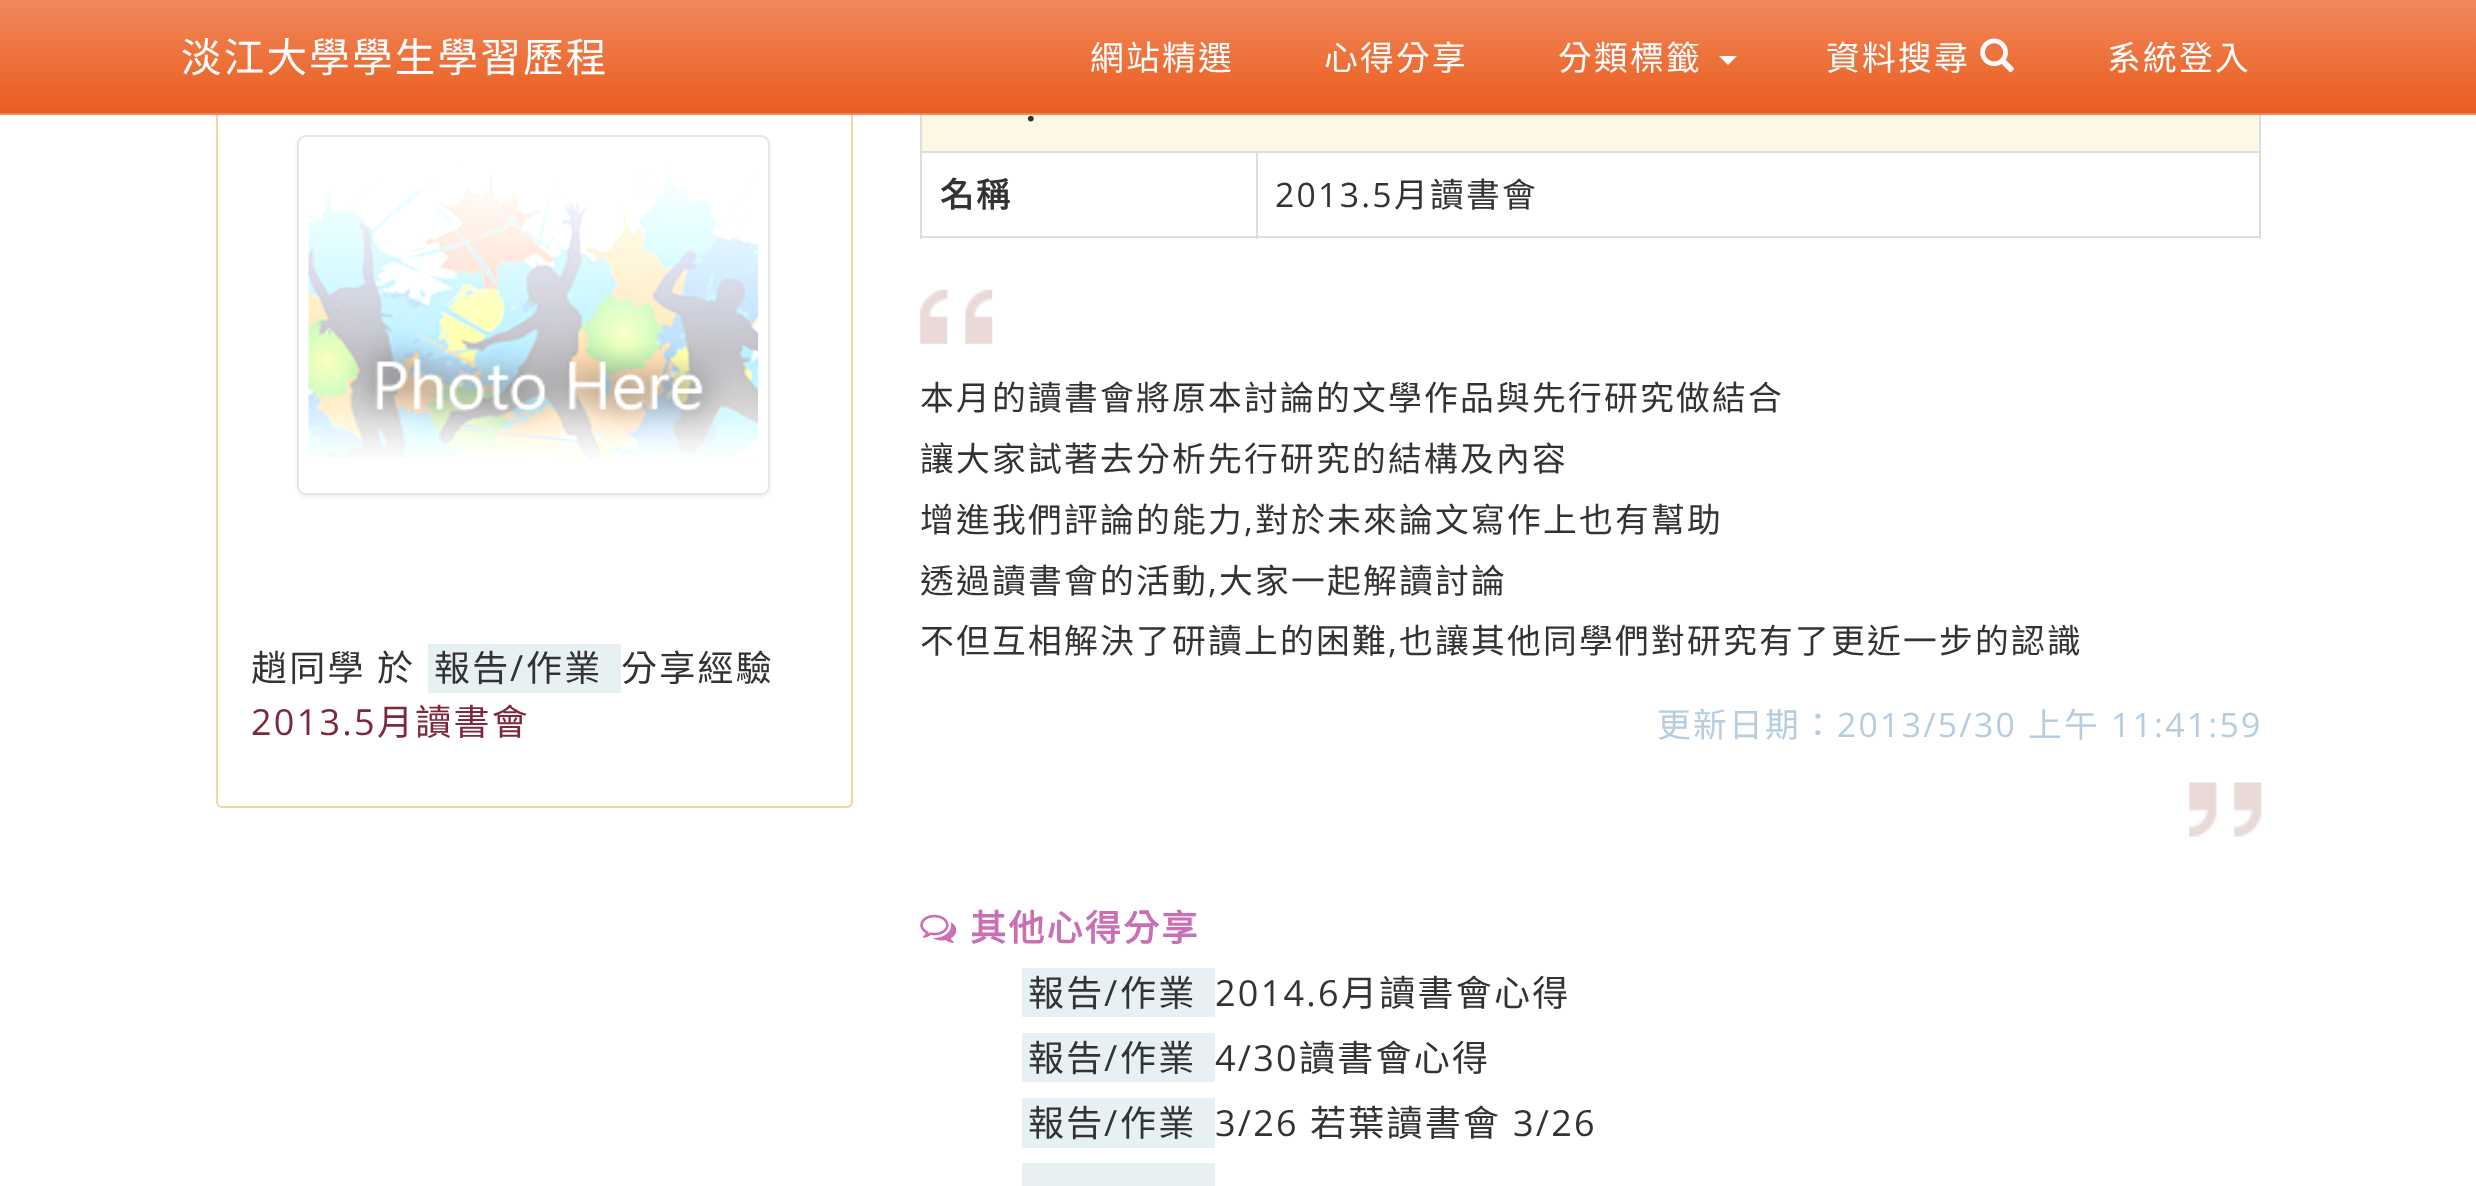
<!DOCTYPE html>
<meta charset="utf-8">
<style>body { margin: 0 } canvas { display: block }</style>
<canvas id="canvas" width="2476" height="1186"></canvas>
<script type="module">
  const canvas = document.getElementById("canvas");
  const ctx = canvas.getContext("2d");
  ctx.miterLimit = 4;
  ctx.fontKerning = "normal";
  async function loadImage(src) {
    const img = new Image();
    img.src = src;
    await img.decode();
    return img;
  }
  let gradient;

  ctx.fillStyle = "#ffffff";
  ctx.fillRect(0, 0, 2476, 1186);
  ctx.beginPath();
  ctx.roundRect(217, 100, 635, 707, 5);
  ctx.strokeStyle = "#f7d29d";
  ctx.lineWidth = 2;
  ctx.stroke();
  gradient = ctx.createLinearGradient(1239, 0, 1239, 113);
  gradient.addColorStop(0, "#f1885b");
  gradient.addColorStop(1, "#ea5c1e");
  ctx.fillStyle = gradient;
  ctx.fillRect(0, 0, 2476, 113);
  ctx.fillStyle = "#f1885b";
  ctx.fillRect(0, 113, 2476, 2);
  ctx.letterSpacing = "2.25px";
  ctx.font = "40.5px Noto Sans CJK TC";
  ctx.fillStyle = "#ffffff";
  ctx.fillText("淡江大學學生學習歷程", 181, 72);
  ctx.font = "33.75px Noto Sans CJK TC";
  ctx.fillText("網站精選", 1090, 70);
  ctx.fillText("心得分享", 1324, 70);
  ctx.fillText("分類標籤", 1558, 70);
  ctx.beginPath();
  ctx.moveTo(1719, 56);
  ctx.lineTo(1737, 56);
  ctx.lineTo(1728, 65);
  ctx.closePath();
  ctx.fill();
  ctx.fillText("資料搜尋", 1826, 70);
  ctx.drawImage(await loadImage("img1.png"), 1980, 38, 34, 35);
  ctx.fillText("系統登入", 2107, 70);
  ctx.fillStyle = "rgba(0, 0, 0, 0.07)";
  ctx.filter = "blur(2px)";
  ctx.beginPath();
  ctx.roundRect(297, 137, 473, 360, 9);
  ctx.fill();
  ctx.filter = "none";
  ctx.fillStyle = "#ffffff";
  ctx.beginPath();
  ctx.roundRect(298, 136, 471, 358, 8);
  ctx.fill();
  ctx.strokeStyle = "#e6e6e6";
  ctx.stroke();
  ctx.drawImage(await loadImage("img2.png"), 308, 160, 451, 300);
  ctx.font = "36px Noto Sans CJK TC";
  ctx.fillStyle = "#333333";
  ctx.fillText("趙同學", 251, 681);
  ctx.fillText("於", 377, 681);
  ctx.fillStyle = "#e7f0f3";
  ctx.fillRect(428, 644, 193, 49);
  ctx.fillStyle = "#333333";
  ctx.fillText("報告", 434, 681);
  ctx.font = "36px Open Sans";
  ctx.fillText("/", 510, 681);
  ctx.font = "36px Noto Sans CJK TC";
  ctx.fillText("作業", 526, 681);
  ctx.fillText("分享經驗", 621, 681);
  ctx.font = "36px Open Sans";
  ctx.fillStyle = "#7d283d";
  ctx.fillText("2013.5", 251, 735);
  ctx.font = "36px Noto Sans CJK TC";
  ctx.fillText("月讀書會", 377, 735);
  ctx.fillStyle = "#dddddd";
  ctx.fillRect(2259, 115, 2, 124);
  ctx.fillRect(920, 236, 1341, 2);
  ctx.fillRect(920, 115, 2, 124);
  ctx.fillStyle = "#fcf8e3";
  ctx.fillRect(922, 115, 1337, 36);
  ctx.font = "bold 33.75px Open Sans";
  ctx.fillStyle = "#333333";
  ctx.fillText(".", 1026, 121);
  ctx.fillStyle = "#dddddd";
  ctx.fillRect(1256, 151, 1005, 2);
  ctx.fillRect(1256, 151, 2, 88);
  ctx.fillRect(920, 151, 338, 2);
  ctx.font = "bold 33.75px Noto Sans CJK TC";
  ctx.fillStyle = "#333333";
  ctx.fillText("名稱", 940, 207);
  ctx.font = "33.75px Open Sans";
  ctx.fillText("2013.5", 1275, 207);
  ctx.font = "33.75px Noto Sans CJK TC";
  ctx.fillText("月讀書會", 1394, 207);
  ctx.drawImage(await loadImage("img3.png"), 920, 289, 73, 55);
  ctx.fillText("本月的讀書會將原本討論的文學作品與先行研究做結合", 920, 410);
  ctx.fillText("讓大家試著去分析先行研究的結構及內容", 920, 471);
  ctx.fillText("增進我們評論的能力", 920, 532);
  ctx.font = "33.75px Open Sans";
  ctx.fillText(",", 1244, 532);
  ctx.font = "33.75px Noto Sans CJK TC";
  ctx.fillText("對於未來論文寫作上也有幫助", 1255, 532);
  ctx.fillText("透過讀書會的活動", 920, 593);
  ctx.font = "33.75px Open Sans";
  ctx.fillText(",", 1208, 593);
  ctx.font = "33.75px Noto Sans CJK TC";
  ctx.fillText("大家一起解讀討論", 1219, 593);
  ctx.fillText("不但互相解決了研讀上的困難", 920, 653);
  ctx.font = "33.75px Open Sans";
  ctx.fillText(",", 1388, 653);
  ctx.font = "33.75px Noto Sans CJK TC";
  ctx.fillText("也讓其他同學們對研究有了更近一步的認識", 1399, 653);
  ctx.fillStyle = "#b6cde1";
  ctx.fillText("更新日期：", 1657, 737);
  ctx.font = "33.75px Open Sans";
  ctx.fillText("2013/5/30", 1837, 737);
  ctx.font = "33.75px Noto Sans CJK TC";
  ctx.fillText("上午", 2028, 737);
  ctx.font = "33.75px Open Sans";
  ctx.fillText("11:41:59", 2111, 737);
  ctx.drawImage(await loadImage("img4.png"), 2189, 782, 73, 55);
  ctx.drawImage(await loadImage("img5.png"), 920, 914, 37, 29);
  ctx.font = "bold 36px Noto Sans CJK TC";
  ctx.fillStyle = "#ca6eb5";
  ctx.fillText("其他心得分享", 970, 941);
  ctx.fillStyle = "#e7f0f3";
  ctx.fillRect(1022, 968, 193, 49);
  ctx.font = "36px Noto Sans CJK TC";
  ctx.fillStyle = "#333333";
  ctx.fillText("報告", 1028, 1006);
  ctx.font = "36px Open Sans";
  ctx.fillText("/", 1104, 1006);
  ctx.font = "36px Noto Sans CJK TC";
  ctx.fillText("作業", 1120, 1006);
  ctx.font = "36px Open Sans";
  ctx.fillText("2014.6", 1215, 1006);
  ctx.font = "36px Noto Sans CJK TC";
  ctx.fillText("月讀書會心得", 1341, 1006);
  ctx.fillStyle = "#e7f0f3";
  ctx.fillRect(1022, 1033, 193, 49);
  ctx.fillStyle = "#333333";
  ctx.fillText("報告", 1028, 1071);
  ctx.font = "36px Open Sans";
  ctx.fillText("/", 1104, 1071);
  ctx.font = "36px Noto Sans CJK TC";
  ctx.fillText("作業", 1120, 1071);
  ctx.font = "36px Open Sans";
  ctx.fillText("4/30", 1215, 1071);
  ctx.font = "36px Noto Sans CJK TC";
  ctx.fillText("讀書會心得", 1299, 1071);
  ctx.fillStyle = "#e7f0f3";
  ctx.fillRect(1022, 1098, 193, 50);
  ctx.fillStyle = "#333333";
  ctx.fillText("報告", 1028, 1136);
  ctx.font = "36px Open Sans";
  ctx.fillText("/", 1104, 1136);
  ctx.font = "36px Noto Sans CJK TC";
  ctx.fillText("作業", 1120, 1136);
  ctx.font = "36px Open Sans";
  ctx.fillText("3/26", 1215, 1136);
  ctx.font = "36px Noto Sans CJK TC";
  ctx.fillText("若葉讀書會", 1310, 1136);
  ctx.font = "36px Open Sans";
  ctx.fillText("3/26", 1513, 1136);
  ctx.fillStyle = "#e7f0f3";
  ctx.fillRect(1022, 1163, 193, 23);
</script>
